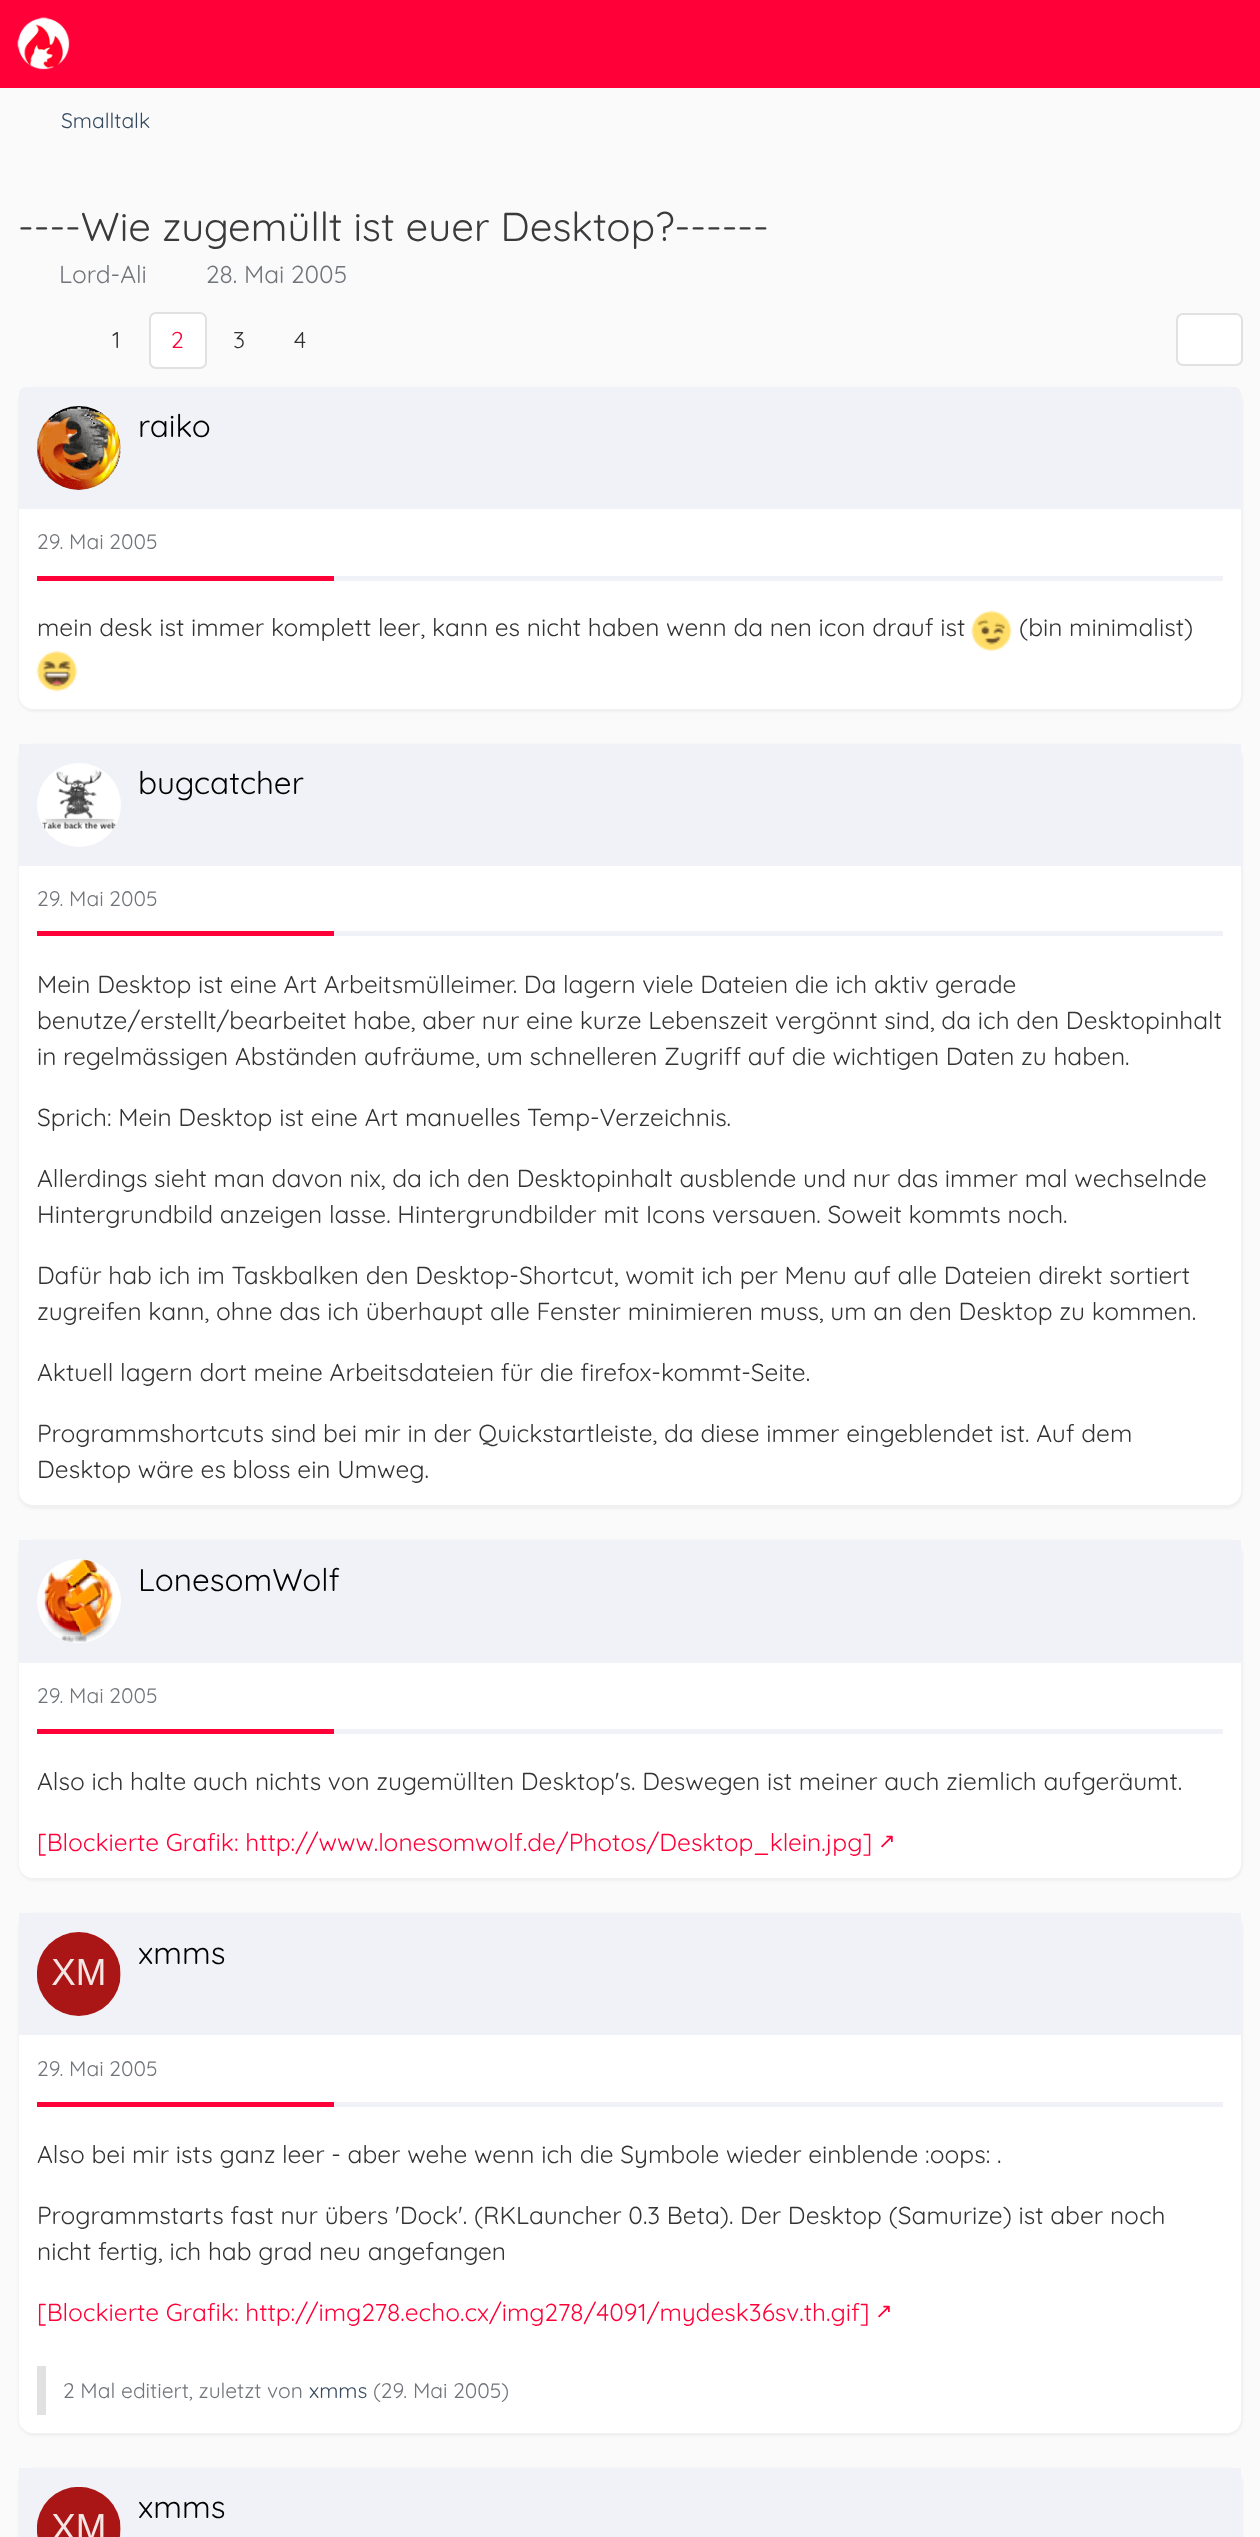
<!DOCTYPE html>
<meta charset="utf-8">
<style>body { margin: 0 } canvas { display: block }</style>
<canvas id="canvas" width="1260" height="2537"></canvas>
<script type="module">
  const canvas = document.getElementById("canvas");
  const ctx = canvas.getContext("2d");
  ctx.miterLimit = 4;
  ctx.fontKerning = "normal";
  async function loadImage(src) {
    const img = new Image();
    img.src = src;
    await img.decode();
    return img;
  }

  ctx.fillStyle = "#fafafa";
  ctx.fillRect(0, 0, 1260, 2537);
  ctx.fillStyle = "#ff0039";
  ctx.fillRect(0, 0, 1260, 88);
  ctx.drawImage(await loadImage("img1.png"), 17, 17, 53, 53);
  ctx.font = "300 21px Quicksand";
  ctx.fillStyle = "#34495e";
  ctx.fillText("Smalltalk", 61, 128);
  ctx.font = "300 40.25px Quicksand";
  ctx.fillStyle = "#3a3a3d";
  ctx.fillText("----Wie zugemüllt ist euer Desktop?------", 18, 241);
  ctx.font = "300 24.5px Quicksand";
  ctx.fillStyle = "#71757a";
  ctx.fillText("Lord-Ali", 59, 283);
  ctx.fillText("28. Mai 2005", 206, 283);
  ctx.font = "300 23px Quicksand";
  ctx.fillStyle = "#333333";
  ctx.fillText("1", 112, 348);
  ctx.fillStyle = "#ffffff";
  ctx.beginPath();
  ctx.roundRect(150, 313, 56, 55, 6);
  ctx.fill();
  ctx.strokeStyle = "#e1e1e1";
  ctx.lineWidth = 2;
  ctx.stroke();
  ctx.fillStyle = "#ff0039";
  ctx.fillText("2", 171, 348);
  ctx.fillStyle = "#333333";
  ctx.fillText("3", 233, 348);
  ctx.fillText("4", 294, 348);
  ctx.fillStyle = "#ffffff";
  ctx.beginPath();
  ctx.roundRect(1177, 314, 65, 51, 6);
  ctx.fill();
  ctx.stroke();
  ctx.fillStyle = "rgba(0, 0, 0, 0.04)";
  ctx.filter = "blur(1px)";
  ctx.beginPath();
  ctx.roundRect(18, 387, 1225, 325, 16);
  ctx.fill();
  ctx.filter = "none";
  ctx.fillStyle = "#ffffff";
  ctx.beginPath();
  ctx.roundRect(19, 387, 1222, 322, 14);
  ctx.fill();
  ctx.fillStyle = "#f0f2f7";
  ctx.beginPath();
  ctx.roundRect(19, 387, 1222, 122, [7, 7, 0, 0]);
  ctx.fill();
  ctx.fillStyle = "#ffffff";
  ctx.beginPath();
  ctx.arc(79, 448, 42, 0, Math.PI * 2);
  ctx.fill();
  ctx.drawImage(await loadImage("img2.png"), 36, 406, 85, 84);
  ctx.font = "300 31.5px Quicksand";
  ctx.fillStyle = "#000000";
  ctx.fillText("raiko", 138, 437);
  ctx.font = "300 21px Quicksand";
  ctx.fillStyle = "#71757a";
  ctx.fillText("29. Mai 2005", 37, 549);
  ctx.fillStyle = "#ff0039";
  ctx.fillRect(37, 576, 297, 5);
  ctx.fillStyle = "#f0f2f7";
  ctx.fillRect(334, 576, 889, 5);
  ctx.font = "300 24.5px Quicksand";
  ctx.fillStyle = "#333333";
  ctx.fillText("mein desk ist immer komplett leer, kann es nicht haben wenn da nen icon drauf ist", 37, 636);
  ctx.drawImage(await loadImage("img3.png"), 971, 610, 41, 41);
  ctx.fillText("(bin minimalist)", 1019, 636);
  ctx.drawImage(await loadImage("img4.png"), 36, 651, 41, 41);
  ctx.fillStyle = "rgba(0, 0, 0, 0.04)";
  ctx.filter = "blur(1px)";
  ctx.beginPath();
  ctx.roundRect(18, 744, 1225, 765, 16);
  ctx.fill();
  ctx.filter = "none";
  ctx.fillStyle = "#ffffff";
  ctx.beginPath();
  ctx.roundRect(19, 744, 1222, 761, 14);
  ctx.fill();
  ctx.fillStyle = "#f0f2f7";
  ctx.fillRect(19, 744, 1222, 122);
  ctx.fillStyle = "#ffffff";
  ctx.beginPath();
  ctx.arc(79, 805, 42, 0, Math.PI * 2);
  ctx.fill();
  ctx.drawImage(await loadImage("img5.png"), 42, 770, 74, 60);
  ctx.font = "300 31.5px Quicksand";
  ctx.fillStyle = "#000000";
  ctx.fillText("bugcatcher", 138, 794);
  ctx.font = "300 21px Quicksand";
  ctx.fillStyle = "#71757a";
  ctx.fillText("29. Mai 2005", 37, 906);
  ctx.fillStyle = "#ff0039";
  ctx.fillRect(37, 931, 297, 5);
  ctx.fillStyle = "#f0f2f7";
  ctx.fillRect(334, 931, 889, 5);
  ctx.font = "300 24.5px Quicksand";
  ctx.fillStyle = "#333333";
  ctx.fillText("Mein Desktop ist eine Art Arbeitsmülleimer. Da lagern viele Dateien die ich aktiv gerade", 37, 993);
  ctx.fillText("benutze/erstellt/bearbeitet habe, aber nur eine kurze Lebenszeit vergönnt sind, da ich den Desktopinhalt", 37, 1029);
  ctx.fillText("in regelmässigen Abständen aufräume, um schnelleren Zugriff auf die wichtigen Daten zu haben.", 37, 1065);
  ctx.fillText("Sprich: Mein Desktop ist eine Art manuelles Temp-Verzeichnis.", 37, 1126);
  ctx.fillText("Allerdings sieht man davon nix, da ich den Desktopinhalt ausblende und nur das immer mal wechselnde", 37, 1187);
  ctx.fillText("Hintergrundbild anzeigen lasse. Hintergrundbilder mit Icons versauen. Soweit kommts noch.", 37, 1223);
  ctx.fillText("Dafür hab ich im Taskbalken den Desktop-Shortcut, womit ich per Menu auf alle Dateien direkt sortiert", 37, 1284);
  ctx.fillText("zugreifen kann, ohne das ich überhaupt alle Fenster minimieren muss, um an den Desktop zu kommen.", 37, 1320);
  ctx.fillText("Aktuell lagern dort meine Arbeitsdateien für die firefox-kommt-Seite.", 37, 1381);
  ctx.fillText("Programmshortcuts sind bei mir in der Quickstartleiste, da diese immer eingeblendet ist. Auf dem", 37, 1442);
  ctx.fillText("Desktop wäre es bloss ein Umweg.", 37, 1478);
  ctx.fillStyle = "rgba(0, 0, 0, 0.04)";
  ctx.filter = "blur(1px)";
  ctx.beginPath();
  ctx.roundRect(18, 1540, 1225, 341, 16);
  ctx.fill();
  ctx.filter = "none";
  ctx.fillStyle = "#ffffff";
  ctx.beginPath();
  ctx.roundRect(19, 1540, 1222, 338, 14);
  ctx.fill();
  ctx.fillStyle = "#f0f2f7";
  ctx.fillRect(19, 1540, 1222, 123);
  ctx.fillStyle = "#ffffff";
  ctx.beginPath();
  ctx.arc(79, 1601, 42, 0, Math.PI * 2);
  ctx.fill();
  ctx.drawImage(await loadImage("img6.png"), 43, 1559, 71, 83);
  ctx.font = "300 31.5px Quicksand";
  ctx.fillStyle = "#000000";
  ctx.fillText("LonesomWolf", 138, 1591);
  ctx.font = "300 21px Quicksand";
  ctx.fillStyle = "#71757a";
  ctx.fillText("29. Mai 2005", 37, 1703);
  ctx.fillStyle = "#ff0039";
  ctx.fillRect(37, 1729, 297, 5);
  ctx.fillStyle = "#f0f2f7";
  ctx.fillRect(334, 1729, 889, 5);
  ctx.font = "300 24.5px Quicksand";
  ctx.fillStyle = "#333333";
  ctx.fillText("Also ich halte auch nichts von zugemüllten Desktop's. Deswegen ist meiner auch ziemlich aufgeräumt.", 37, 1790);
  ctx.fillStyle = "#ff0039";
  ctx.fillText("[Blockierte Grafik: http://www.lonesomwolf.de/Photos/Desktop_klein.jpg]", 37, 1851);
  ctx.font = "21px DejaVu Sans";
  ctx.fillText("↗", 878, 1848);
  ctx.fillStyle = "rgba(0, 0, 0, 0.04)";
  ctx.filter = "blur(1px)";
  ctx.beginPath();
  ctx.roundRect(18, 1913, 1225, 523, 16);
  ctx.fill();
  ctx.filter = "none";
  ctx.fillStyle = "#ffffff";
  ctx.beginPath();
  ctx.roundRect(19, 1913, 1222, 520, 14);
  ctx.fill();
  ctx.fillStyle = "#f0f2f7";
  ctx.fillRect(19, 1913, 1222, 122);
  ctx.fillStyle = "#ffffff";
  ctx.beginPath();
  ctx.arc(79, 1974, 42, 0, Math.PI * 2);
  ctx.fill();
  ctx.drawImage(await loadImage("img7.png"), 37, 1932, 84, 84);
  ctx.font = "300 31.5px Quicksand";
  ctx.fillStyle = "#000000";
  ctx.fillText("xmms", 138, 1964);
  ctx.font = "300 21px Quicksand";
  ctx.fillStyle = "#71757a";
  ctx.fillText("29. Mai 2005", 37, 2076);
  ctx.fillStyle = "#ff0039";
  ctx.fillRect(37, 2102, 297, 5);
  ctx.fillStyle = "#f0f2f7";
  ctx.fillRect(334, 2102, 889, 5);
  ctx.font = "300 24.5px Quicksand";
  ctx.fillStyle = "#333333";
  ctx.fillText("Also bei mir ists ganz leer - aber wehe wenn ich die Symbole wieder einblende :oops: .", 37, 2163);
  ctx.fillText("Programmstarts fast nur übers 'Dock'. (RKLauncher 0.3 Beta). Der Desktop (Samurize) ist aber noch", 37, 2224);
  ctx.fillText("nicht fertig, ich hab grad neu angefangen", 37, 2260);
  ctx.fillStyle = "#ff0039";
  ctx.fillText("[Blockierte Grafik: http://img278.echo.cx/img278/4091/mydesk36sv.th.gif]", 37, 2321);
  ctx.font = "21px DejaVu Sans";
  ctx.fillText("↗", 875, 2318);
  ctx.fillStyle = "#e1e1e1";
  ctx.fillRect(37, 2366, 9, 49);
  ctx.font = "300 21px Quicksand";
  ctx.fillStyle = "#71757a";
  ctx.fillText("2 Mal editiert, zuletzt von", 63, 2398);
  ctx.fillStyle = "#34495e";
  ctx.fillText("xmms", 309, 2398);
  ctx.fillStyle = "#71757a";
  ctx.fillText("(29. Mai 2005)", 373, 2398);
  ctx.fillStyle = "rgba(0, 0, 0, 0.04)";
  ctx.filter = "blur(1px)";
  ctx.beginPath();
  ctx.roundRect(18, 2468, 1225, 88, 16);
  ctx.fill();
  ctx.filter = "none";
  ctx.fillStyle = "#f0f2f7";
  ctx.fillRect(19, 2468, 1222, 69);
  ctx.fillStyle = "#ffffff";
  ctx.beginPath();
  ctx.arc(79, 2529, 42, 0, Math.PI * 2);
  ctx.fill();
  ctx.drawImage(await loadImage("img8.png"), 37, 2487, 84, 50);
  ctx.font = "300 31.5px Quicksand";
  ctx.fillStyle = "#000000";
  ctx.fillText("xmms", 138, 2518);
</script>
